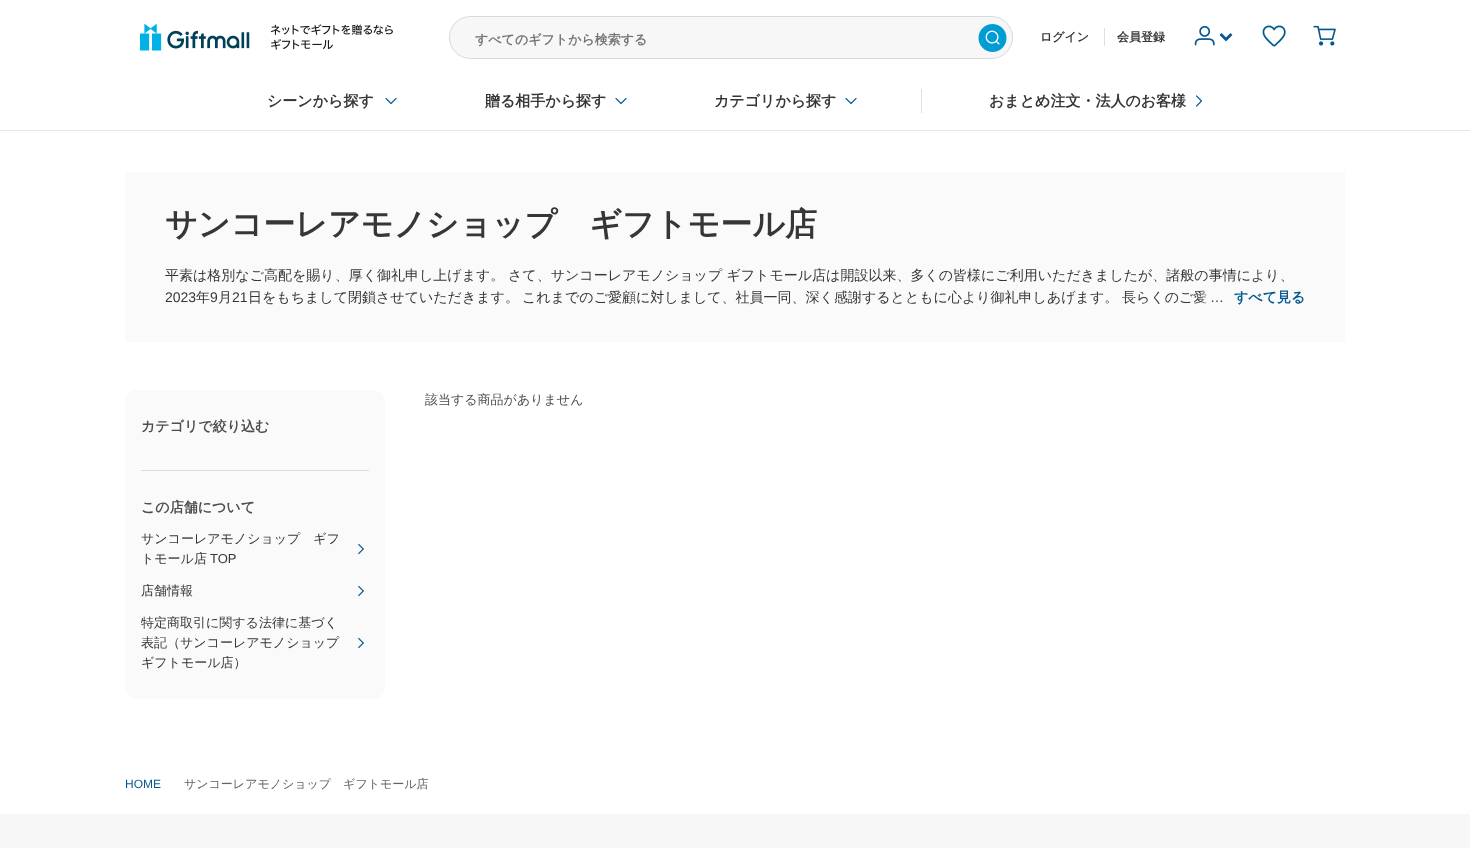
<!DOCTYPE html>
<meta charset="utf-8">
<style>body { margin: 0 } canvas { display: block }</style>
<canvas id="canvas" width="1470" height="848"></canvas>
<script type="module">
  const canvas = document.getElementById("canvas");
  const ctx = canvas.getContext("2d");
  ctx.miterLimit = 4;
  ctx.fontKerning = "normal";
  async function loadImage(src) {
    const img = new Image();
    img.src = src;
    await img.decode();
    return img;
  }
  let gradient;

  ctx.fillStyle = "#ffffff";
  ctx.fillRect(0, 0, 1470, 848);
  ctx.fillStyle = "#e6e6e6";
  ctx.fillRect(0, 130, 1470, 1);
  ctx.drawImage(await loadImage("img1.png"), 140, 23, 253, 28);
  ctx.fillStyle = "#f7f7f7";
  ctx.beginPath();
  ctx.roundRect(449, 16, 564, 43, 21.5);
  ctx.fill();
  ctx.beginPath();
  ctx.roundRect(449.5, 16.5, 563, 42, 21);
  ctx.strokeStyle = "rgba(0, 0, 0, 0.12)";
  ctx.stroke();
  ctx.font = "bold 13px WenQuanYi Zen Hei";
  ctx.fillStyle = "#757575";
  ctx.fillText("すべてのギフトから検索する", 475, 44);
  ctx.drawImage(await loadImage("img2.png"), 978, 24, 29, 28);
  ctx.font = "bold 12px WenQuanYi Zen Hei";
  ctx.fillStyle = "#363636";
  ctx.fillText("ログイン", 1040, 41);
  ctx.fillStyle = "#e0e0e0";
  ctx.fillRect(1104, 28, 1, 18);
  ctx.fillStyle = "#363636";
  ctx.fillText("会員登録", 1117, 41);
  ctx.drawImage(await loadImage("img3.png"), 1194, 25, 21, 21);
  ctx.drawImage(await loadImage("img4.png"), 1219, 33, 14, 9);
  ctx.drawImage(await loadImage("img5.png"), 1262, 25, 24, 22);
  ctx.drawImage(await loadImage("img6.png"), 1313, 25, 23, 21);
  ctx.drawImage(await loadImage("img7.png"), 385, 98, 12, 6);
  ctx.font = "bold 15px WenQuanYi Zen Hei";
  ctx.fillText("シーンから探す", 267, 106);
  ctx.drawImage(await loadImage("img7.png"), 615, 98, 12, 6);
  ctx.fillText("贈る相手から探す", 485, 106);
  ctx.drawImage(await loadImage("img7.png"), 845, 98, 12, 6);
  ctx.fillText("カテゴリから探す", 714, 106);
  ctx.fillStyle = "#e0e0e0";
  ctx.fillRect(921, 89, 1, 24);
  ctx.fillStyle = "#363636";
  ctx.fillText("おまとめ注文・法人のお客様", 989, 106);
  ctx.drawImage(await loadImage("img8.png"), 1196, 95, 6, 12);
  ctx.fillStyle = "#fafafa";
  ctx.fillRect(125, 172, 1220, 170);
  ctx.font = "bold 32px WenQuanYi Zen Hei";
  ctx.fillStyle = "#363636";
  ctx.fillText("サンコーレアモノショップ　ギフトモール店", 165, 235);
  ctx.font = "500 14px WenQuanYi Zen Hei";
  ctx.fillText("平素は格別なご高配を賜り、厚く御礼申し上げます。", 165, 280);
  ctx.fillText("さて、サンコーレアモノショップ ギフトモール店は開設以来、多くの皆様にご利用いただきましたが、諸般の事情により、", 508, 280);
  ctx.font = "14px Liberation Sans";
  ctx.fillText("2023", 165, 302);
  ctx.font = "500 14px WenQuanYi Zen Hei";
  ctx.fillText("年", 196, 302);
  ctx.font = "14px Liberation Sans";
  ctx.fillText("9", 210, 302);
  ctx.font = "500 14px WenQuanYi Zen Hei";
  ctx.fillText("月", 218, 302);
  ctx.font = "14px Liberation Sans";
  ctx.fillText("21", 232, 302);
  ctx.font = "500 14px WenQuanYi Zen Hei";
  ctx.fillText("日をもちまして閉鎖させていただきます。", 248, 302);
  ctx.fillText("これまでのご愛顧に対しまして、社員一同、深く感謝するとともに心より御礼申しあげます。", 522, 302);
  ctx.fillText("長らくのご愛", 1122, 302);
  gradient = ctx.createLinearGradient(1200, 297, 1305, 297);
  gradient.addColorStop(0, "rgba(250, 250, 250, 0)");
  gradient.addColorStop(0.1, "#fafafa");
  ctx.fillStyle = gradient;
  ctx.fillRect(1200, 290, 7, 14);
  ctx.font = "14px Liberation Sans";
  ctx.fillStyle = "#363636";
  ctx.fillText("…", 1210, 302);
  ctx.font = "bold 14px WenQuanYi Zen Hei";
  ctx.fillStyle = "#065990";
  ctx.fillText("すべて見る", 1234, 302);
  ctx.font = "500 13px WenQuanYi Zen Hei";
  ctx.fillStyle = "#4d4d4d";
  ctx.fillText("該当する商品がありません", 425, 404);
  ctx.fillStyle = "#fafafa";
  ctx.beginPath();
  ctx.roundRect(125, 390, 260, 309, 12);
  ctx.fill();
  ctx.font = "bold 14px WenQuanYi Zen Hei";
  ctx.fillStyle = "#4d4d4d";
  ctx.fillText("カテゴリで絞り込む", 141, 431);
  ctx.fillStyle = "#dcdcdc";
  ctx.fillRect(141, 470, 228, 1);
  ctx.fillStyle = "#4d4d4d";
  ctx.fillText("この店舗について", 141, 512);
  ctx.font = "500 13px WenQuanYi Zen Hei";
  ctx.fillStyle = "#363636";
  ctx.fillText("サンコーレアモノショップ　ギフ", 141, 543);
  ctx.fillText("トモール店", 141, 563);
  ctx.font = "13px Liberation Sans";
  ctx.fillText("TOP", 210, 563);
  ctx.drawImage(await loadImage("img9.png"), 358, 543, 6, 12);
  ctx.font = "500 13px WenQuanYi Zen Hei";
  ctx.fillText("店舗情報", 141, 595);
  ctx.drawImage(await loadImage("img9.png"), 358, 585, 6, 12);
  ctx.fillText("特定商取引に関する法律に基づく", 141, 627);
  ctx.fillText("表記（サンコーレアモノショップ", 141, 647);
  ctx.fillText("ギフトモール店）", 141, 667);
  ctx.drawImage(await loadImage("img9.png"), 358, 637, 6, 12);
  ctx.font = "12px Liberation Sans";
  ctx.fillStyle = "#065990";
  ctx.fillText("HOME", 125, 788);
  ctx.font = "500 12px WenQuanYi Zen Hei";
  ctx.fillStyle = "#636363";
  ctx.fillText("サンコーレアモノショップ　ギフトモール店", 184, 788);
  ctx.fillStyle = "#f7f7f7";
  ctx.fillRect(0, 814, 1470, 34);
</script>
